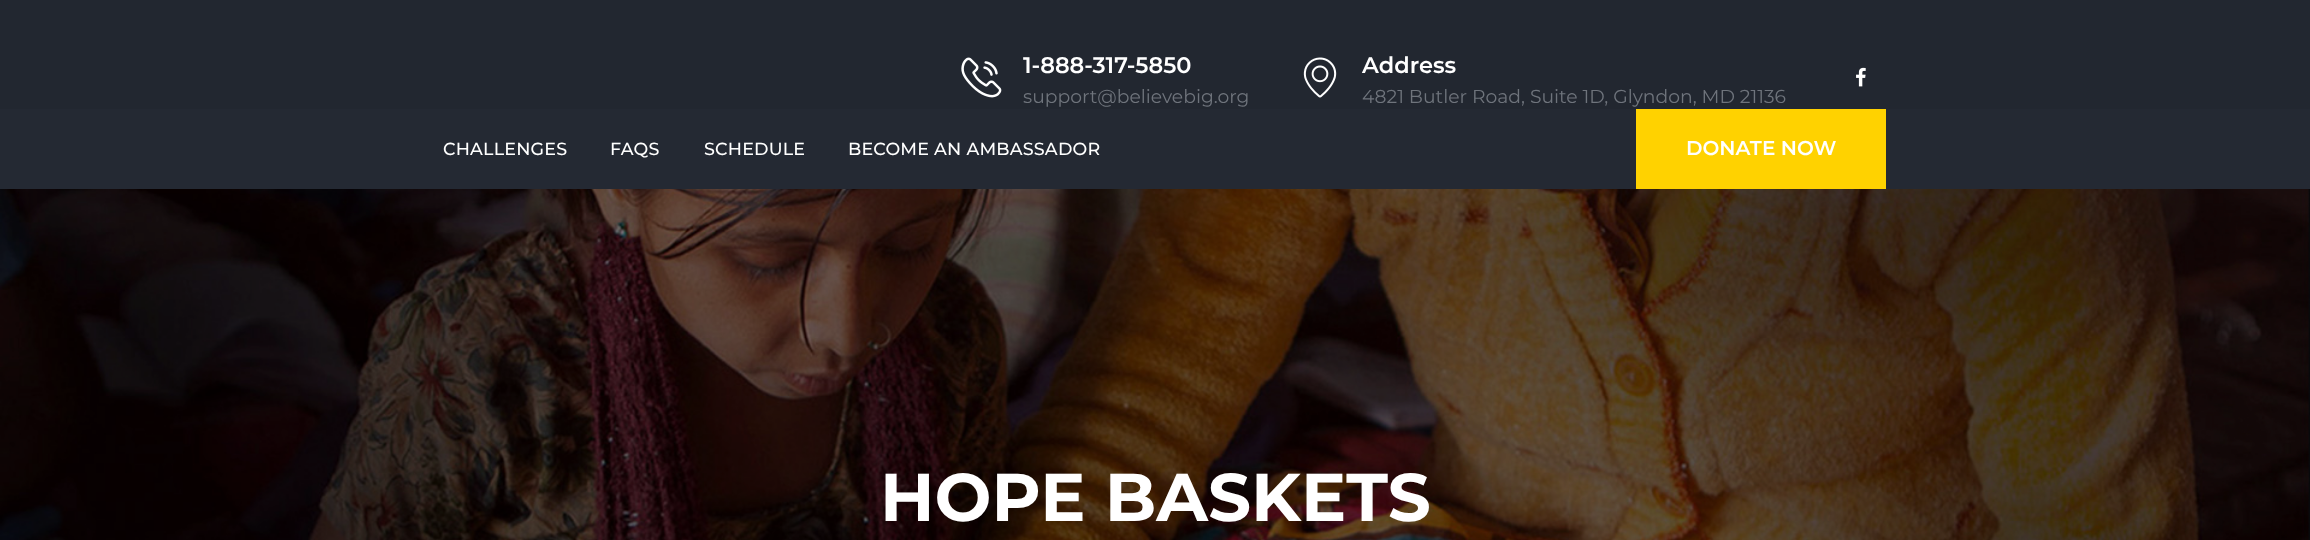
<!DOCTYPE html>
<meta charset="utf-8">
<style>body { margin: 0 } canvas { display: block }</style>
<canvas id="canvas" width="2310" height="540"></canvas>
<script type="module">
  const canvas = document.getElementById("canvas");
  const ctx = canvas.getContext("2d");
  ctx.miterLimit = 4;
  ctx.fontKerning = "normal";
  async function loadImage(src) {
    const img = new Image();
    img.src = src;
    await img.decode();
    return img;
  }

  ctx.fillStyle = "#ffffff";
  ctx.fillRect(0, 0, 2310, 540);
  ctx.fillStyle = "#222730";
  ctx.fillRect(0, 0, 2310, 109);
  ctx.drawImage(await loadImage("img1.png"), 961, 57, 41, 41);
  ctx.font = "600 22.5px Montserrat";
  ctx.fillStyle = "#ffffff";
  ctx.fillText("1-888-317-5850", 1023, 73);
  ctx.font = "18.75px Montserrat";
  ctx.fillStyle = "#6f747c";
  ctx.fillText("support@believebig.org", 1023, 103);
  ctx.drawImage(await loadImage("img2.png"), 1303, 57, 34, 41);
  ctx.font = "600 22.5px Montserrat";
  ctx.fillStyle = "#ffffff";
  ctx.fillText("Address", 1362, 73);
  ctx.font = "18.75px Montserrat";
  ctx.fillStyle = "#6f747c";
  ctx.fillText("4821 Butler Road, Suite 1D, Glyndon, MD 21136", 1362, 103);
  ctx.drawImage(await loadImage("img3.png"), 1856, 67, 10, 20);
  ctx.fillStyle = "#242933";
  ctx.fillRect(0, 109, 2310, 80);
  ctx.letterSpacing = "0.2px";
  ctx.font = "500 17.5px Montserrat";
  ctx.fillStyle = "#ffffff";
  ctx.fillText("CHALLENGES", 443, 155);
  ctx.fillText("FAQS", 610, 155);
  ctx.fillText("SCHEDULE", 704, 155);
  ctx.fillText("BECOME AN AMBASSADOR", 848, 155);
  ctx.fillStyle = "#ffd200";
  ctx.fillRect(1636, 109, 250, 80);
  ctx.letterSpacing = "0px";
  ctx.font = "600 20px Montserrat";
  ctx.fillStyle = "#ffffff";
  ctx.fillText("DONATE NOW", 1686, 155);
  ctx.drawImage(await loadImage("img4.png"), 0, 189, 2310, 351);
  ctx.font = "bold 67.5px Montserrat";
  ctx.fillText("HOPE BASKETS", 880, 521);
</script>
